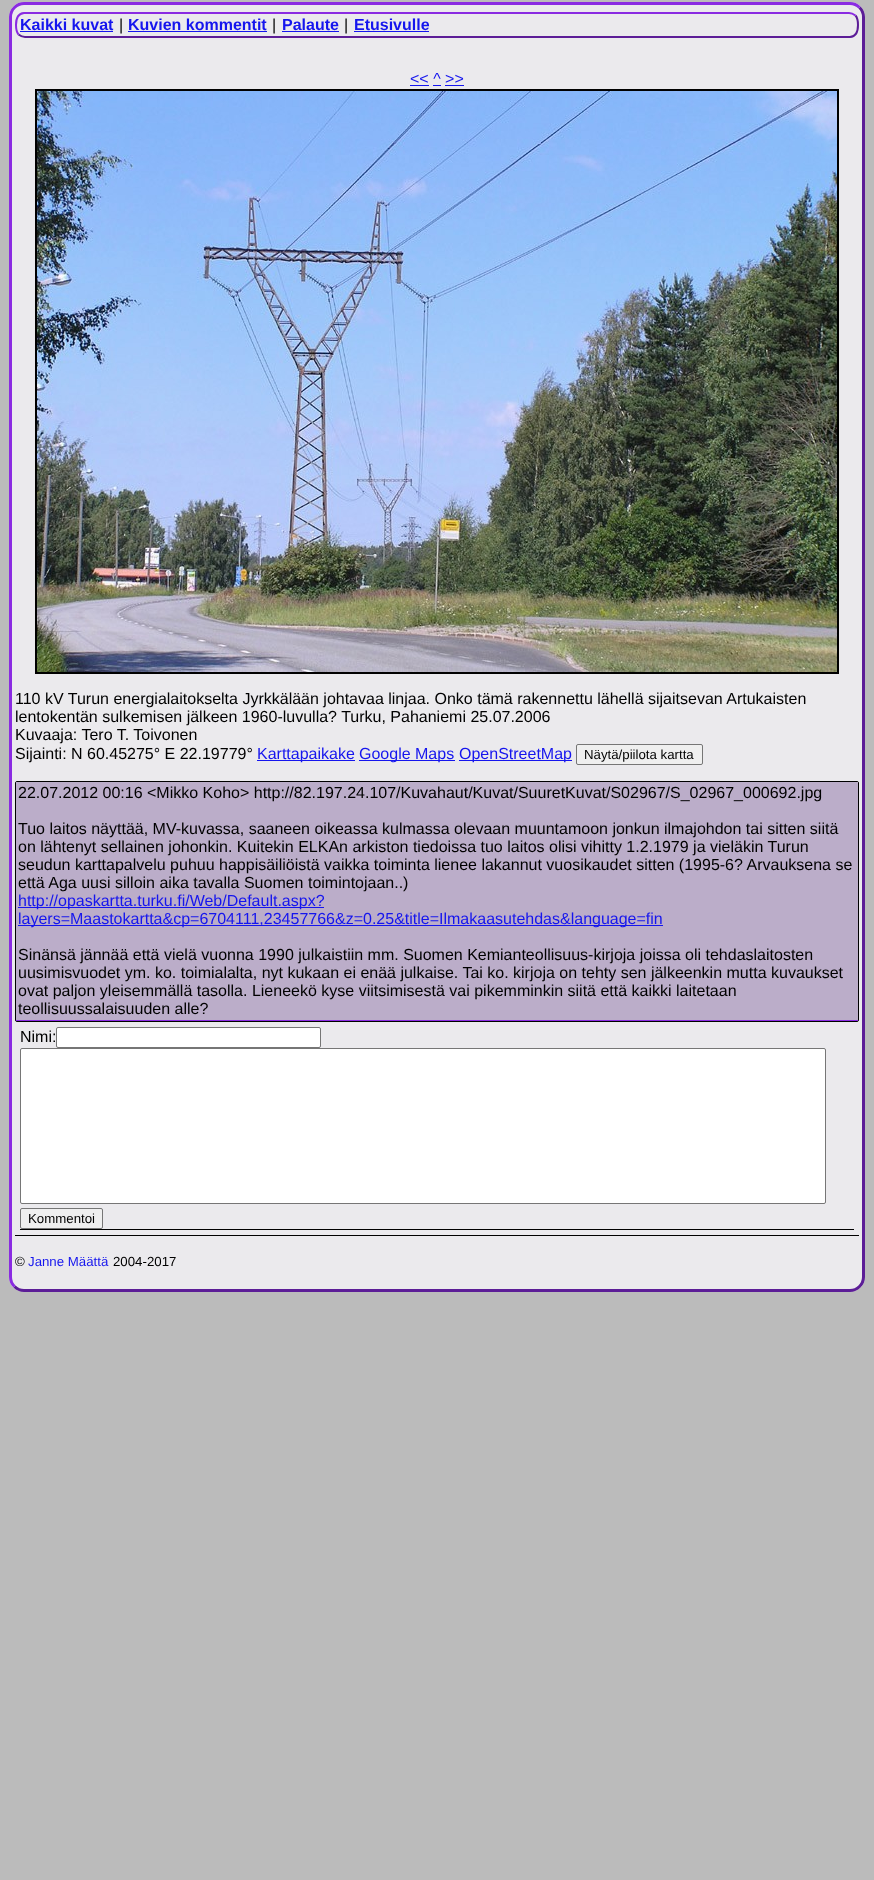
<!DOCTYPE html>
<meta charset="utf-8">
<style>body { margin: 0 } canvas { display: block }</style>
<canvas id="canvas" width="874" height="1880"></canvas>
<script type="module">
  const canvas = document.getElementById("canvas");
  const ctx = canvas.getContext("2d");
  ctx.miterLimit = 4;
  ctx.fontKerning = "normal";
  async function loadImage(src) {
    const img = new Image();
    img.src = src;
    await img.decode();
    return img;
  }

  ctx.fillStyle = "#bbbbbb";
  ctx.fillRect(0, 0, 874, 1880);
  ctx.fillStyle = "#ebeaed";
  ctx.beginPath();
  ctx.roundRect(9, 2, 856, 1290, 15);
  ctx.fill();
  ctx.beginPath();
  ctx.moveTo(859.5, 7.5);
  ctx.bezierCurveTo(862, 10, 863.5, 13.5, 863.5, 17);
  ctx.lineTo(863.5, 1277);
  ctx.bezierCurveTo(863.5, 1280.5, 862, 1284, 859.5, 1286.5);
  ctx.bezierCurveTo(857, 1289, 853.5, 1290.5, 850, 1290.5);
  ctx.lineTo(24, 1290.5);
  ctx.bezierCurveTo(20.5, 1290.5, 17, 1289, 14.5, 1286.5);
  ctx.strokeStyle = "#5c1d97";
  ctx.lineWidth = 3;
  ctx.stroke();
  ctx.beginPath();
  ctx.moveTo(14.5, 1286.5);
  ctx.bezierCurveTo(12, 1284, 10.5, 1280.5, 10.5, 1277);
  ctx.lineTo(10.5, 17);
  ctx.bezierCurveTo(10.5, 13.5, 12, 10, 14.5, 7.5);
  ctx.bezierCurveTo(17, 5, 20.5, 3.5, 24, 3.5);
  ctx.lineTo(850, 3.5);
  ctx.bezierCurveTo(853.5, 3.5, 857, 5, 859.5, 7.5);
  ctx.strokeStyle = "#8a2be2";
  ctx.stroke();
  ctx.beginPath();
  ctx.moveTo(855.5, 15.5);
  ctx.bezierCurveTo(858, 18.5, 858, 21.5, 858, 25);
  ctx.bezierCurveTo(858, 30.5, 856.5, 36.5, 850, 37);
  ctx.lineTo(25, 37);
  ctx.bezierCurveTo(22.5, 37, 20.5, 36, 18.5, 34.5);
  ctx.strokeStyle = "#5c1d97";
  ctx.lineWidth = 2;
  ctx.stroke();
  ctx.beginPath();
  ctx.moveTo(18.5, 34.5);
  ctx.bezierCurveTo(16, 31.5, 16, 28.5, 16, 25);
  ctx.bezierCurveTo(16, 19.5, 17.5, 13.5, 24, 13);
  ctx.lineTo(849, 13);
  ctx.bezierCurveTo(851.5, 13, 853.5, 14, 855.5, 15.5);
  ctx.strokeStyle = "#8a2be2";
  ctx.stroke();
  ctx.font = "bold 16px Liberation Sans";
  ctx.fillStyle = "#1515ee";
  ctx.fillText("Kaikki kuvat", 20, 30);
  ctx.fillRect(20, 31, 93, 1);
  ctx.font = "16px Liberation Sans";
  ctx.fillStyle = "#000000";
  ctx.fillText("|", 119, 30);
  ctx.font = "bold 16px Liberation Sans";
  ctx.fillStyle = "#1515ee";
  ctx.fillText("Kuvien kommentit", 128, 30);
  ctx.fillRect(128, 31, 139, 1);
  ctx.font = "16px Liberation Sans";
  ctx.fillStyle = "#000000";
  ctx.fillText("|", 272, 30);
  ctx.font = "bold 16px Liberation Sans";
  ctx.fillStyle = "#1515ee";
  ctx.fillText("Palaute", 282, 30);
  ctx.fillRect(282, 31, 57, 1);
  ctx.font = "16px Liberation Sans";
  ctx.fillStyle = "#000000";
  ctx.fillText("|", 344, 30);
  ctx.font = "bold 16px Liberation Sans";
  ctx.fillStyle = "#1515ee";
  ctx.fillText("Etusivulle", 354, 30);
  ctx.fillRect(354, 31, 75, 1);
  ctx.font = "16px Liberation Sans";
  ctx.fillText("<< ^ >>", 410, 84);
  ctx.fillRect(410, 85, 19, 1);
  ctx.fillRect(433, 85, 8, 1);
  ctx.fillRect(445, 85, 19, 1);
  ctx.strokeStyle = "#000000";
  ctx.strokeRect(36, 90, 802, 583);
  ctx.drawImage(await loadImage("img1.png"), 37, 91, 800, 581);
  ctx.fillStyle = "#000000";
  ctx.fillText("110 kV Turun energialaitokselta Jyrkkälään johtavaa linjaa. Onko tämä rakennettu lähellä sijaitsevan Artukaisten", 15, 704);
  ctx.fillText("lentokentän sulkemisen jälkeen 1960-luvulla? Turku, Pahaniemi 25.07.2006", 15, 722);
  ctx.fillText("Kuvaaja: Tero T. Toivonen", 15, 740);
  ctx.fillText("Sijainti: N 60.45275° E 22.19779°", 15, 759);
  ctx.fillStyle = "#1515ee";
  ctx.fillRect(257, 760, 98, 1);
  ctx.fillText("Karttapaikake", 257, 759);
  ctx.fillRect(359, 760, 96, 1);
  ctx.fillText("Google Maps", 359, 759);
  ctx.fillRect(459, 760, 113, 1);
  ctx.fillText("OpenStreetMap", 459, 759);
  ctx.fillStyle = "#efefef";
  ctx.beginPath();
  ctx.roundRect(576.5, 744.5, 126, 20, 1.5);
  ctx.fill();
  ctx.strokeStyle = "#767676";
  ctx.lineWidth = 1;
  ctx.stroke();
  ctx.font = "13.25px Liberation Sans";
  ctx.fillStyle = "#000000";
  ctx.fillText("Näytä/piilota kartta", 584, 759);
  ctx.beginPath();
  ctx.roundRect(15.5, 781.5, 843, 240, 1.5);
  ctx.strokeStyle = "#000000";
  ctx.stroke();
  ctx.fillStyle = "#bbadc9";
  ctx.fillRect(16, 782, 842, 238);
  ctx.fillStyle = "#8a2be2";
  ctx.fillRect(16, 1020, 842, 1);
  ctx.font = "16px Liberation Sans";
  ctx.fillStyle = "#000000";
  ctx.fillText("22.07.2012 00:16 <Mikko Koho> http://82.197.24.107/Kuvahaut/Kuvat/SuuretKuvat/S02967/S_02967_000692.jpg", 18, 798);
  ctx.fillText("Tuo laitos näyttää, MV-kuvassa, saaneen oikeassa kulmassa olevaan muuntamoon jonkun ilmajohdon tai sitten siitä", 18, 834);
  ctx.fillText("on lähtenyt sellainen johonkin. Kuitekin ELKAn arkiston tiedoissa tuo laitos olisi vihitty 1.2.1979 ja vieläkin Turun", 18, 852);
  ctx.fillText("seudun karttapalvelu puhuu happisäiliöistä vaikka toiminta lienee lakannut vuosikaudet sitten (1995-6? Arvauksena se", 18, 870);
  ctx.fillText("että Aga uusi silloin aika tavalla Suomen toimintojaan..)", 18, 888);
  ctx.fillStyle = "#1515ee";
  ctx.fillRect(18, 907, 306, 1);
  ctx.fillText("http://opaskartta.turku.fi/Web/Default.aspx?", 18, 906);
  ctx.fillRect(18, 925, 645, 1);
  ctx.fillText("layers=Maastokartta&cp=6704111,23457766&z=0.25&title=Ilmakaasutehdas&language=fin", 18, 924);
  ctx.fillStyle = "#000000";
  ctx.fillText("Sinänsä jännää että vielä vuonna 1990 julkaistiin mm. Suomen Kemianteollisuus-kirjoja joissa oli tehdaslaitosten", 18, 960);
  ctx.fillText("uusimisvuodet ym. ko. toimialalta, nyt kukaan ei enää julkaise. Tai ko. kirjoja on tehty sen jälkeenkin mutta kuvaukset", 18, 978);
  ctx.fillText("ovat paljon yleisemmällä tasolla. Lieneekö kyse viitsimisestä vai pikemminkin siitä että kaikki laitetaan", 18, 996);
  ctx.fillText("teollisuussalaisuuden alle?", 18, 1014);
  ctx.fillText("Nimi:", 20, 1042);
  ctx.fillStyle = "#ffffff";
  ctx.beginPath();
  ctx.roundRect(56.5, 1027.5, 264, 20, 1.5);
  ctx.fill();
  ctx.strokeStyle = "#767676";
  ctx.stroke();
  ctx.beginPath();
  ctx.roundRect(20.5, 1048.5, 805, 155, 1.5);
  ctx.fill();
  ctx.stroke();
  ctx.fillStyle = "#efefef";
  ctx.beginPath();
  ctx.roundRect(20.5, 1208.5, 82, 20, 1.5);
  ctx.fill();
  ctx.stroke();
  ctx.font = "13.25px Liberation Sans";
  ctx.fillStyle = "#000000";
  ctx.fillText("Kommentoi", 28, 1223);
  ctx.fillRect(20, 1229, 834, 1);
  ctx.fillRect(15, 1235, 844, 1);
  ctx.fillText("©", 15, 1266);
  ctx.fillStyle = "#1515ee";
  ctx.fillText("Janne Määttä", 28, 1266);
  ctx.fillStyle = "#000000";
  ctx.fillText("2004-2017", 113, 1266);
</script>
